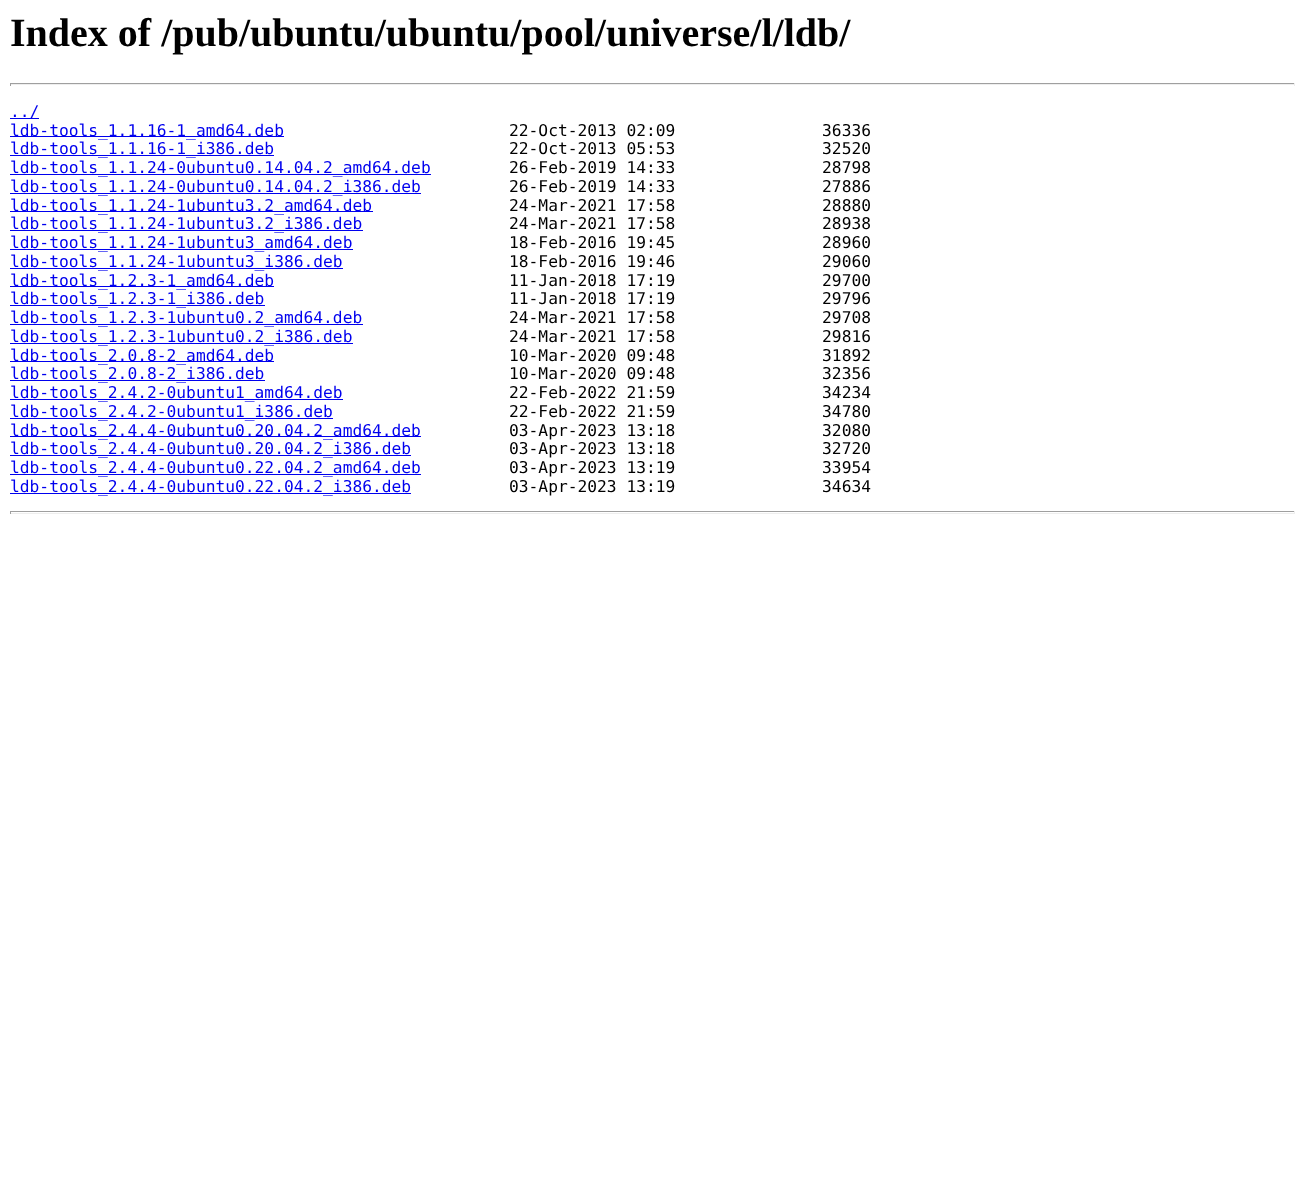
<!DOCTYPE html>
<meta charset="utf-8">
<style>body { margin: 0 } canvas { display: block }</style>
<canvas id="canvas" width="1305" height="1184"></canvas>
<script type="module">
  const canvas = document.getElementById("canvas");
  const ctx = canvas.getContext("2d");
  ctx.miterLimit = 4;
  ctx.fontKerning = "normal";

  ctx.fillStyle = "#ffffff";
  ctx.fillRect(0, 0, 1305, 1184);
  ctx.font = "bold 40px Liberation Serif";
  ctx.fillStyle = "#000000";
  ctx.fillText("Index of /pub/ubuntu/ubuntu/pool/universe/l/ldb/", 10, 46);
  ctx.fillStyle = "#9f9f9f";
  ctx.fillRect(10, 83, 1285, 1);
  ctx.fillStyle = "#eeeeee";
  ctx.fillRect(1294, 83, 1, 3);
  ctx.fillRect(10, 84, 1285, 1);
  ctx.fillStyle = "#9f9f9f";
  ctx.fillRect(10, 83, 1, 3);
  ctx.fillStyle = "#0000ee";
  ctx.fillRect(10, 118, 29, 1);
  ctx.font = "16.25px DejaVu Sans Mono";
  ctx.fillText("../", 10, 117);
  ctx.fillRect(10, 136, 274, 1);
  ctx.fillText("ldb-tools_1.1.16-1_amd64.deb", 10, 136);
  ctx.fillStyle = "#000000";
  ctx.fillText("22-Oct-2013 02:09               36336", 509, 136);
  ctx.fillStyle = "#0000ee";
  ctx.fillRect(10, 155, 264, 1);
  ctx.fillText("ldb-tools_1.1.16-1_i386.deb", 10, 154);
  ctx.fillStyle = "#000000";
  ctx.fillText("22-Oct-2013 05:53               32520", 509, 154);
  ctx.fillStyle = "#0000ee";
  ctx.fillRect(10, 174, 421, 1);
  ctx.fillText("ldb-tools_1.1.24-0ubuntu0.14.04.2_amd64.deb", 10, 173);
  ctx.fillStyle = "#000000";
  ctx.fillText("26-Feb-2019 14:33               28798", 509, 173);
  ctx.fillStyle = "#0000ee";
  ctx.fillRect(10, 193, 411, 1);
  ctx.fillText("ldb-tools_1.1.24-0ubuntu0.14.04.2_i386.deb", 10, 192);
  ctx.fillStyle = "#000000";
  ctx.fillText("26-Feb-2019 14:33               27886", 509, 192);
  ctx.fillStyle = "#0000ee";
  ctx.fillRect(10, 211, 363, 1);
  ctx.fillText("ldb-tools_1.1.24-1ubuntu3.2_amd64.deb", 10, 211);
  ctx.fillStyle = "#000000";
  ctx.fillText("24-Mar-2021 17:58               28880", 509, 211);
  ctx.fillStyle = "#0000ee";
  ctx.fillRect(10, 230, 353, 1);
  ctx.fillText("ldb-tools_1.1.24-1ubuntu3.2_i386.deb", 10, 229);
  ctx.fillStyle = "#000000";
  ctx.fillText("24-Mar-2021 17:58               28938", 509, 229);
  ctx.fillStyle = "#0000ee";
  ctx.fillRect(10, 249, 343, 1);
  ctx.fillText("ldb-tools_1.1.24-1ubuntu3_amd64.deb", 10, 248);
  ctx.fillStyle = "#000000";
  ctx.fillText("18-Feb-2016 19:45               28960", 509, 248);
  ctx.fillStyle = "#0000ee";
  ctx.fillRect(10, 268, 333, 1);
  ctx.fillText("ldb-tools_1.1.24-1ubuntu3_i386.deb", 10, 267);
  ctx.fillStyle = "#000000";
  ctx.fillText("18-Feb-2016 19:46               29060", 509, 267);
  ctx.fillStyle = "#0000ee";
  ctx.fillRect(10, 286, 264, 1);
  ctx.fillText("ldb-tools_1.2.3-1_amd64.deb", 10, 286);
  ctx.fillStyle = "#000000";
  ctx.fillText("11-Jan-2018 17:19               29700", 509, 286);
  ctx.fillStyle = "#0000ee";
  ctx.fillRect(10, 305, 255, 1);
  ctx.fillText("ldb-tools_1.2.3-1_i386.deb", 10, 304);
  ctx.fillStyle = "#000000";
  ctx.fillText("11-Jan-2018 17:19               29796", 509, 304);
  ctx.fillStyle = "#0000ee";
  ctx.fillRect(10, 324, 353, 1);
  ctx.fillText("ldb-tools_1.2.3-1ubuntu0.2_amd64.deb", 10, 323);
  ctx.fillStyle = "#000000";
  ctx.fillText("24-Mar-2021 17:58               29708", 509, 323);
  ctx.fillStyle = "#0000ee";
  ctx.fillRect(10, 343, 343, 1);
  ctx.fillText("ldb-tools_1.2.3-1ubuntu0.2_i386.deb", 10, 342);
  ctx.fillStyle = "#000000";
  ctx.fillText("24-Mar-2021 17:58               29816", 509, 342);
  ctx.fillStyle = "#0000ee";
  ctx.fillRect(10, 361, 264, 1);
  ctx.fillText("ldb-tools_2.0.8-2_amd64.deb", 10, 361);
  ctx.fillStyle = "#000000";
  ctx.fillText("10-Mar-2020 09:48               31892", 509, 361);
  ctx.fillStyle = "#0000ee";
  ctx.fillRect(10, 380, 255, 1);
  ctx.fillText("ldb-tools_2.0.8-2_i386.deb", 10, 379);
  ctx.fillStyle = "#000000";
  ctx.fillText("10-Mar-2020 09:48               32356", 509, 379);
  ctx.fillStyle = "#0000ee";
  ctx.fillRect(10, 399, 333, 1);
  ctx.fillText("ldb-tools_2.4.2-0ubuntu1_amd64.deb", 10, 398);
  ctx.fillStyle = "#000000";
  ctx.fillText("22-Feb-2022 21:59               34234", 509, 398);
  ctx.fillStyle = "#0000ee";
  ctx.fillRect(10, 418, 323, 1);
  ctx.fillText("ldb-tools_2.4.2-0ubuntu1_i386.deb", 10, 417);
  ctx.fillStyle = "#000000";
  ctx.fillText("22-Feb-2022 21:59               34780", 509, 417);
  ctx.fillStyle = "#0000ee";
  ctx.fillRect(10, 436, 411, 1);
  ctx.fillText("ldb-tools_2.4.4-0ubuntu0.20.04.2_amd64.deb", 10, 436);
  ctx.fillStyle = "#000000";
  ctx.fillText("03-Apr-2023 13:18               32080", 509, 436);
  ctx.fillStyle = "#0000ee";
  ctx.fillRect(10, 455, 401, 1);
  ctx.fillText("ldb-tools_2.4.4-0ubuntu0.20.04.2_i386.deb", 10, 454);
  ctx.fillStyle = "#000000";
  ctx.fillText("03-Apr-2023 13:18               32720", 509, 454);
  ctx.fillStyle = "#0000ee";
  ctx.fillRect(10, 474, 411, 1);
  ctx.fillText("ldb-tools_2.4.4-0ubuntu0.22.04.2_amd64.deb", 10, 473);
  ctx.fillStyle = "#000000";
  ctx.fillText("03-Apr-2023 13:19               33954", 509, 473);
  ctx.fillStyle = "#0000ee";
  ctx.fillRect(10, 493, 401, 1);
  ctx.fillText("ldb-tools_2.4.4-0ubuntu0.22.04.2_i386.deb", 10, 492);
  ctx.fillStyle = "#000000";
  ctx.fillText("03-Apr-2023 13:19               34634", 509, 492);
  ctx.fillStyle = "#9f9f9f";
  ctx.fillRect(10, 511, 1285, 1);
  ctx.fillStyle = "#eeeeee";
  ctx.fillRect(1294, 511, 1, 3);
  ctx.fillRect(10, 513, 1285, 1);
  ctx.fillStyle = "#9f9f9f";
  ctx.fillRect(10, 511, 1, 3);
</script>
